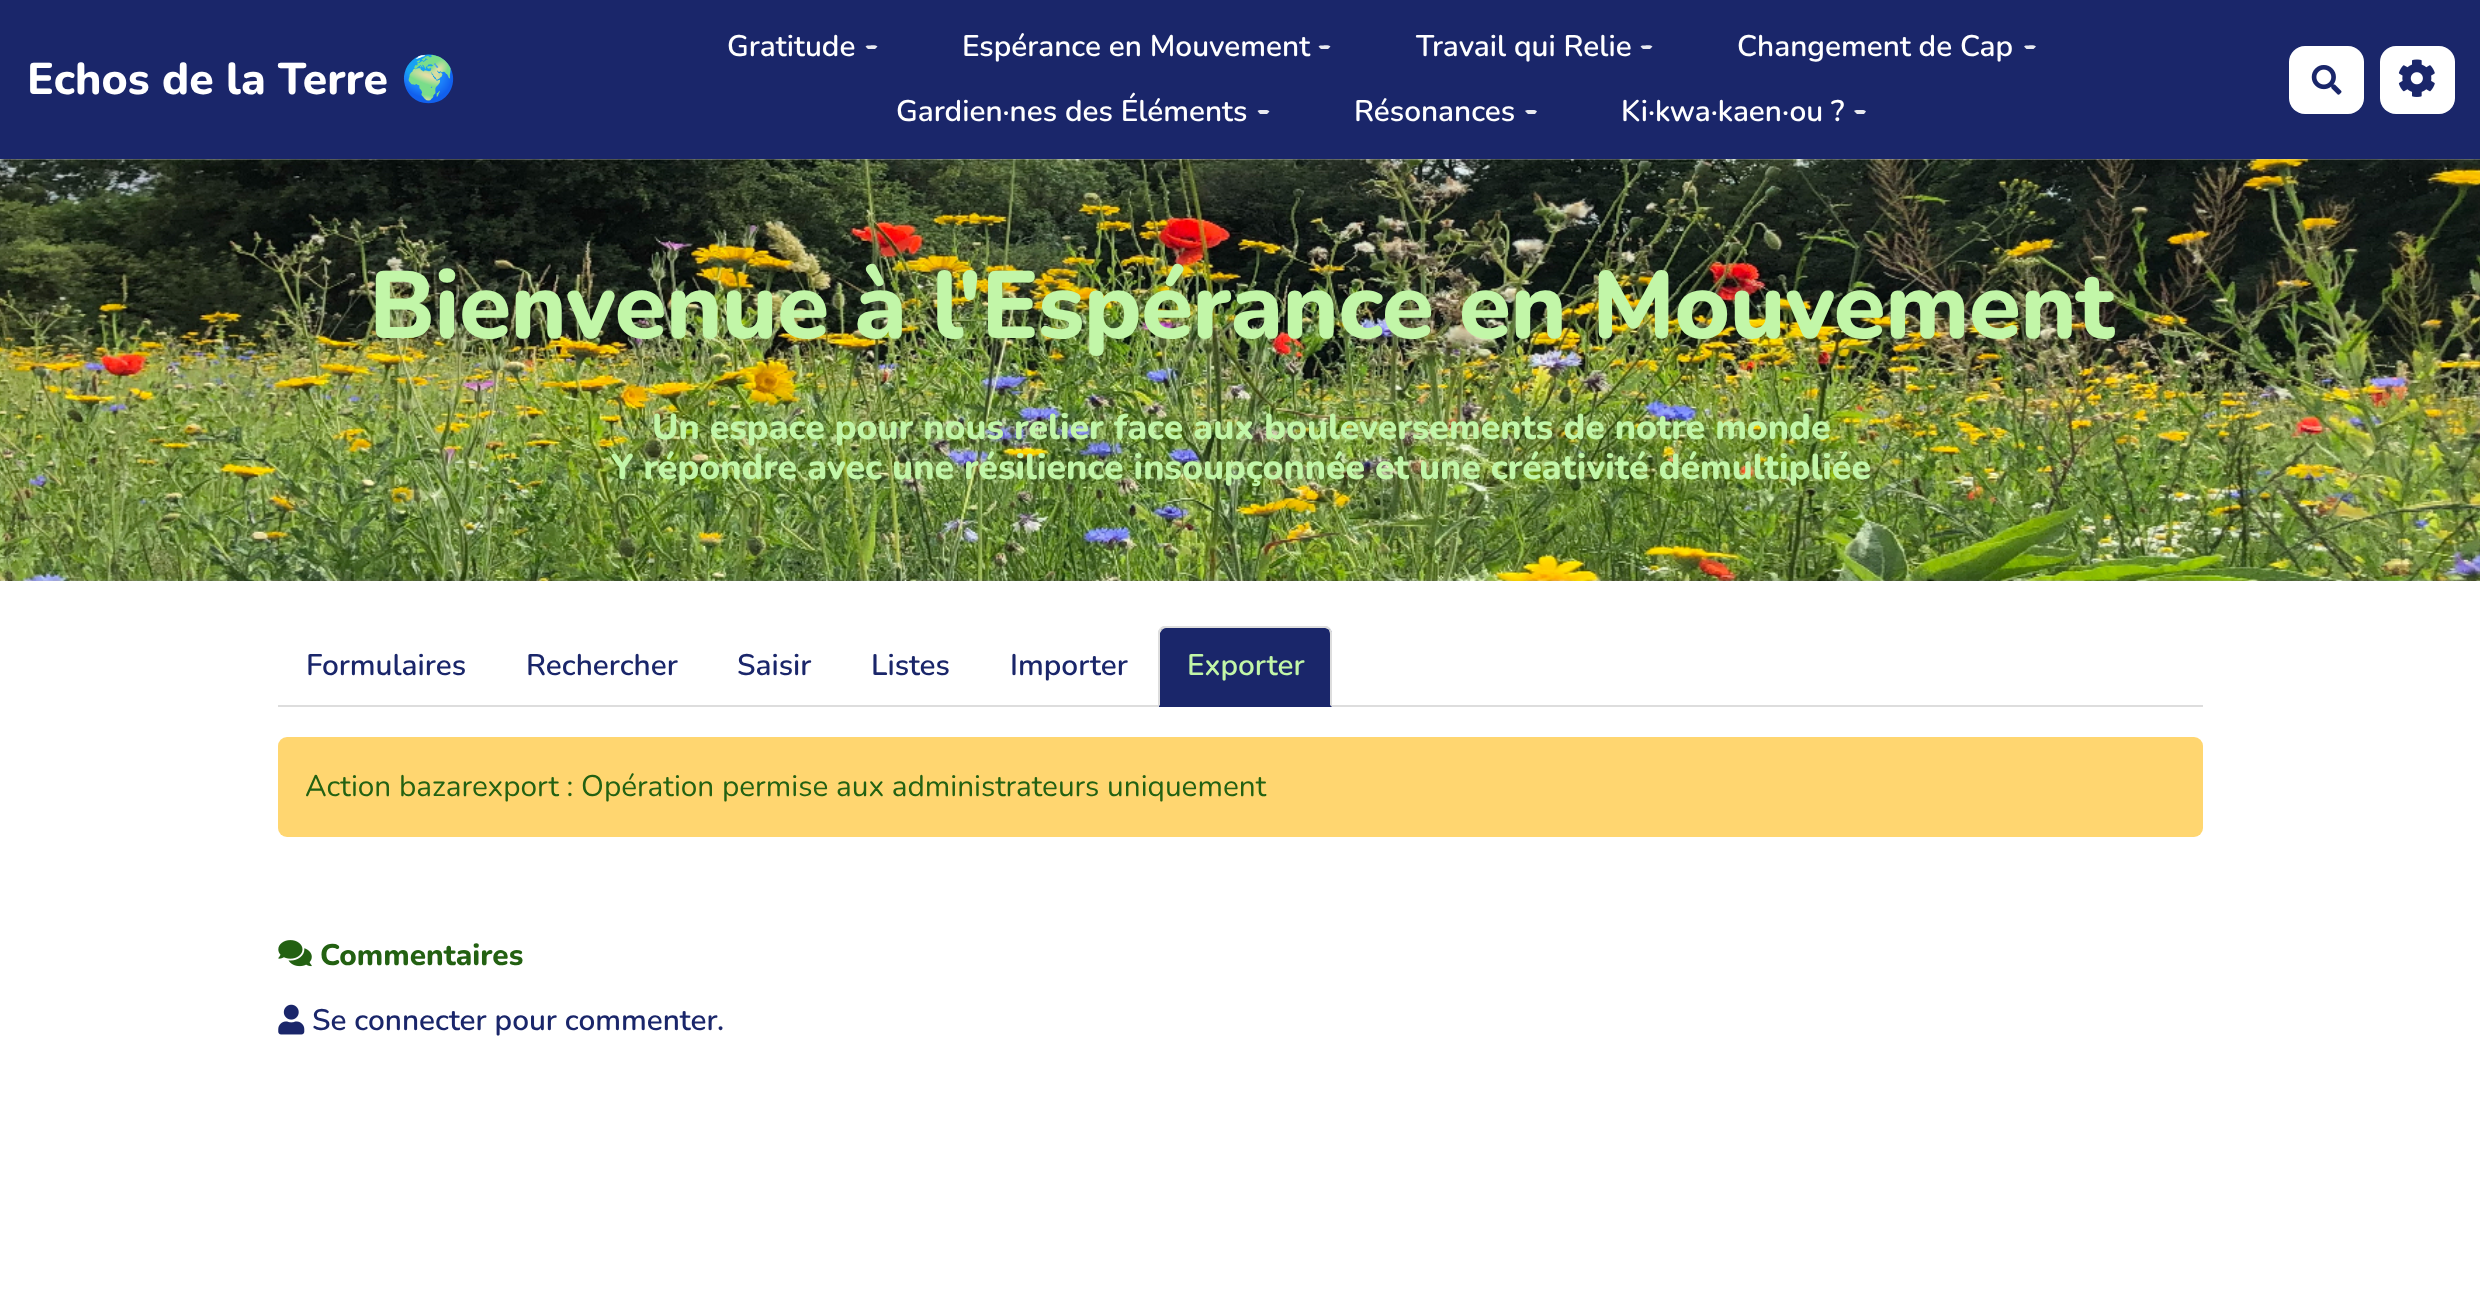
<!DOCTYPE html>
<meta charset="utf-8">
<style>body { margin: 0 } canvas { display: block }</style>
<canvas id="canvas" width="2480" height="1292"></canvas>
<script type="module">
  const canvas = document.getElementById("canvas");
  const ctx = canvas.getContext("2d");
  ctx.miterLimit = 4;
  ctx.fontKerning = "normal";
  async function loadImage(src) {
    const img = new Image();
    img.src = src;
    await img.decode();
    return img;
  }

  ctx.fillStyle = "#ffffff";
  ctx.fillRect(0, 0, 2480, 1292);
  ctx.fillStyle = "#1a266a";
  ctx.fillRect(0, 0, 2480, 159);
  ctx.font = "800 44.5px Nunito";
  ctx.fillStyle = "#ffffff";
  ctx.fillText("Echos de la Terre", 27, 94);
  ctx.font = "bold 44.5px Noto Color Emoji";
  ctx.fillText("🌍", 401, 94);
  ctx.font = "600 29.75px Nunito";
  ctx.fillText("Gratitude", 727, 56);
  ctx.fillStyle = "#e8e9f0";
  ctx.beginPath();
  ctx.moveTo(868, 45.5);
  ctx.bezierCurveTo(870, 45.5, 876, 44.5, 877.5, 46.5);
  ctx.lineTo(875, 49);
  ctx.lineTo(868, 49);
  ctx.lineTo(865.5, 46.5);
  ctx.bezierCurveTo(866, 46, 867, 45.5, 868, 45.5);
  ctx.closePath();
  ctx.fill();
  ctx.fillStyle = "#ffffff";
  ctx.fillText("Espérance en Mouvement", 962, 56);
  ctx.fillStyle = "#e8e9f0";
  ctx.beginPath();
  ctx.moveTo(1321, 45.5);
  ctx.bezierCurveTo(1323, 45.5, 1329, 44.5, 1330.5, 46.5);
  ctx.lineTo(1328, 49);
  ctx.lineTo(1321, 49);
  ctx.lineTo(1318.5, 46.5);
  ctx.bezierCurveTo(1319, 46, 1320, 45.5, 1321, 45.5);
  ctx.closePath();
  ctx.fill();
  ctx.fillStyle = "#ffffff";
  ctx.fillText("Travail qui Relie", 1416, 56);
  ctx.fillStyle = "#e8e9f0";
  ctx.beginPath();
  ctx.moveTo(1643, 45.5);
  ctx.bezierCurveTo(1645, 45.5, 1651, 44.5, 1652.5, 46.5);
  ctx.lineTo(1650, 49);
  ctx.lineTo(1643, 49);
  ctx.lineTo(1640.5, 46.5);
  ctx.bezierCurveTo(1641, 46, 1642, 45.5, 1643, 45.5);
  ctx.closePath();
  ctx.fill();
  ctx.fillStyle = "#ffffff";
  ctx.fillText("Changement de Cap", 1737, 56);
  ctx.fillStyle = "#e8e9f0";
  ctx.beginPath();
  ctx.moveTo(2026.5, 45.5);
  ctx.bezierCurveTo(2028.5, 45.5, 2034.5, 44.5, 2036, 46.5);
  ctx.lineTo(2033.5, 49);
  ctx.lineTo(2026.5, 49);
  ctx.lineTo(2024, 46.5);
  ctx.bezierCurveTo(2024.5, 46, 2025.5, 45.5, 2026.5, 45.5);
  ctx.closePath();
  ctx.fill();
  ctx.fillStyle = "#ffffff";
  ctx.fillText("Gardien·nes des Éléments", 896, 121);
  ctx.fillStyle = "#e8e9f0";
  ctx.beginPath();
  ctx.moveTo(1257.5, 111);
  ctx.bezierCurveTo(1259, 109.5, 1261.5, 110, 1263, 110);
  ctx.bezierCurveTo(1265.5, 110, 1268, 109.5, 1269.5, 111.5);
  ctx.lineTo(1267, 114);
  ctx.lineTo(1260, 114);
  ctx.closePath();
  ctx.fill();
  ctx.fillStyle = "#ffffff";
  ctx.fillText("Résonances", 1354, 121);
  ctx.fillStyle = "#e8e9f0";
  ctx.beginPath();
  ctx.moveTo(1525, 111);
  ctx.bezierCurveTo(1526.5, 109.5, 1529, 110, 1531, 110);
  ctx.bezierCurveTo(1533, 110, 1535.5, 109.5, 1537, 111.5);
  ctx.lineTo(1535, 114);
  ctx.lineTo(1528, 114);
  ctx.closePath();
  ctx.fill();
  ctx.fillStyle = "#ffffff";
  ctx.fillText("Ki·kwa·kaen·ou ?", 1621, 121);
  ctx.fillStyle = "#e8e9f0";
  ctx.beginPath();
  ctx.moveTo(1854, 111);
  ctx.bezierCurveTo(1855.5, 109.5, 1858, 110, 1860, 110);
  ctx.bezierCurveTo(1862, 110, 1864.5, 109.5, 1866, 111.5);
  ctx.lineTo(1864, 114);
  ctx.lineTo(1857, 114);
  ctx.closePath();
  ctx.fill();
  ctx.fillStyle = "#ffffff";
  ctx.beginPath();
  ctx.roundRect(2289, 46, 75, 68, 16);
  ctx.fill();
  ctx.drawImage(await loadImage("img1.png"), 2311, 65, 31, 30);
  ctx.beginPath();
  ctx.roundRect(2380, 46, 75, 68, 16);
  ctx.fill();
  ctx.drawImage(await loadImage("img2.png"), 2398, 59, 37, 38);
  ctx.drawImage(await loadImage("img3.png"), 0, 159, 2480, 422);
  ctx.letterSpacing = "-0.9px";
  ctx.font = "800 95.25px Nunito";
  ctx.fillStyle = "#c2f6a8";
  ctx.fillText("Bienvenue à l'Espérance en Mouvement", 369, 338);
  ctx.letterSpacing = "0px";
  ctx.font = "800 35.7px Nunito";
  ctx.fillText("Un espace pour nous relier face aux bouleversements de notre monde", 652, 439);
  ctx.fillText("Y répondre avec une résilience insoupçonnée et une créativité démultipliée", 611, 479);
  ctx.fillStyle = "#dddddd";
  ctx.fillRect(278, 705, 1925, 2);
  ctx.font = "600 29.75px Nunito";
  ctx.fillStyle = "#1a266a";
  ctx.fillText("Formulaires", 306, 675);
  ctx.fillText("Rechercher", 526, 675);
  ctx.fillText("Saisir", 737, 675);
  ctx.fillText("Listes", 871, 675);
  ctx.fillText("Importer", 1010, 675);
  ctx.beginPath();
  ctx.roundRect(1159, 627, 173, 80, [7, 7, 0, 0]);
  ctx.fill();
  ctx.fillStyle = "#dddddd";
  ctx.beginPath();
  ctx.moveTo(1166, 628);
  ctx.bezierCurveTo(1164, 628, 1163, 629, 1162, 630);
  ctx.lineTo(1160, 628);
  ctx.lineTo(1163, 626);
  ctx.lineTo(1327, 626);
  ctx.lineTo(1330, 628);
  ctx.lineTo(1329, 630);
  ctx.bezierCurveTo(1328, 629, 1326, 628, 1325, 628);
  ctx.closePath();
  ctx.fill();
  ctx.beginPath();
  ctx.moveTo(1332, 632);
  ctx.lineTo(1332, 707);
  ctx.lineTo(1330, 705);
  ctx.lineTo(1330, 634);
  ctx.bezierCurveTo(1330, 632, 1329, 631, 1329, 630);
  ctx.lineTo(1330, 628);
  ctx.closePath();
  ctx.fill();
  ctx.beginPath();
  ctx.moveTo(1158, 707);
  ctx.lineTo(1158, 631);
  ctx.lineTo(1160, 628);
  ctx.lineTo(1162, 630);
  ctx.lineTo(1160, 633);
  ctx.lineTo(1160, 705);
  ctx.closePath();
  ctx.fill();
  ctx.fillStyle = "#c2f6a8";
  ctx.fillText("Exporter", 1187, 675);
  ctx.fillStyle = "#ffd670";
  ctx.beginPath();
  ctx.roundRect(278, 737, 1925, 100, 9);
  ctx.fill();
  ctx.font = "200 29.75px Nunito";
  ctx.fillStyle = "#236112";
  ctx.fillText("Action bazarexport : Opération permise aux administrateurs uniquement", 305, 796);
  ctx.drawImage(await loadImage("img4.png"), 278, 940, 34, 27);
  ctx.font = "800 29.75px Nunito";
  ctx.fillText("Commentaires", 320, 965);
  ctx.drawImage(await loadImage("img5.png"), 278, 1004, 27, 31);
  ctx.font = "600 29.75px Nunito";
  ctx.fillStyle = "#1a266a";
  ctx.fillText("Se connecter pour commenter.", 312, 1030);
</script>
